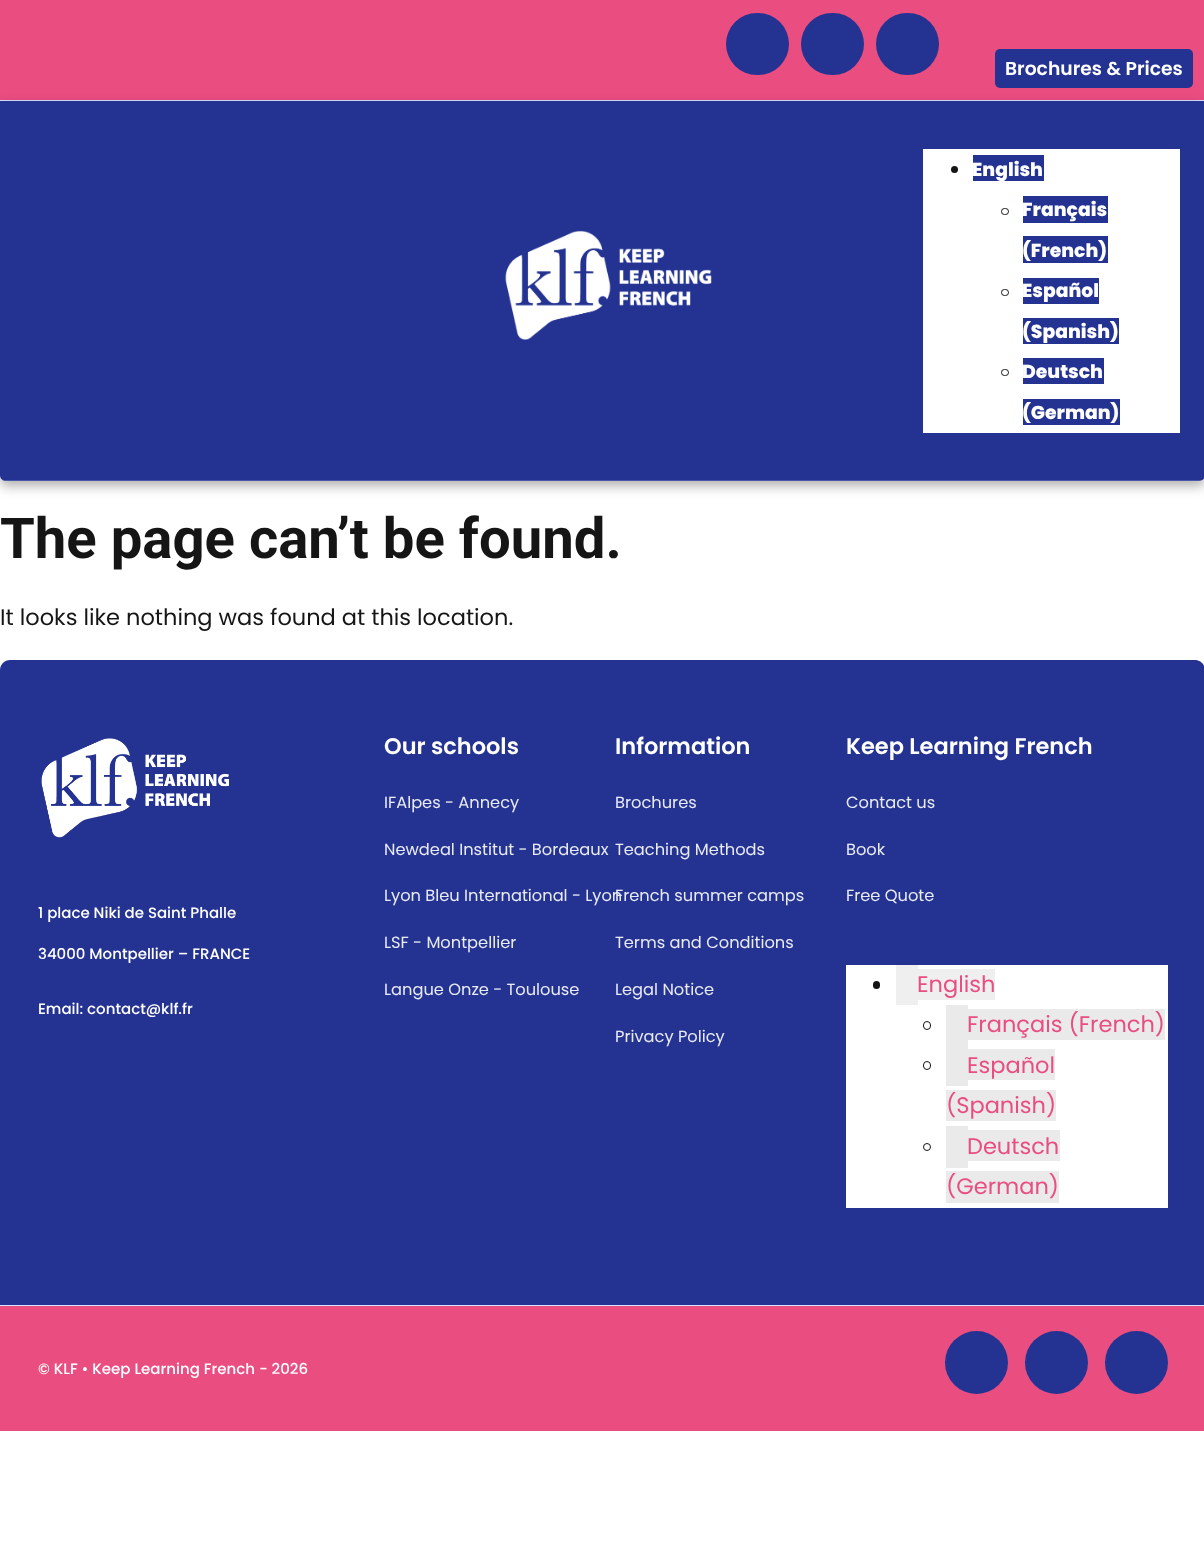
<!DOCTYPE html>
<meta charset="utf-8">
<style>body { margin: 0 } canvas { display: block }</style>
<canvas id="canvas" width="1204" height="1552"></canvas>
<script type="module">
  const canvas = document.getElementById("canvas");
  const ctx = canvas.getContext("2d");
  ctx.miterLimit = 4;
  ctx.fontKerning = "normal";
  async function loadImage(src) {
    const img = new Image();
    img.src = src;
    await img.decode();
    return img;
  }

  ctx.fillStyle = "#ffffff";
  ctx.fillRect(0, 0, 1204, 1552);
  ctx.fillStyle = "#ea4d80";
  ctx.fillRect(0, 0, 1204, 100);
  ctx.fillStyle = "#d8e0ff";
  ctx.fillRect(0, 100, 1204, 1);
  ctx.fillStyle = "#243391";
  ctx.beginPath();
  ctx.roundRect(726, 13, 63, 62, 31);
  ctx.fill();
  ctx.beginPath();
  ctx.roundRect(801, 13, 63, 62, 31);
  ctx.fill();
  ctx.beginPath();
  ctx.roundRect(876, 13, 63, 62, 31);
  ctx.fill();
  ctx.beginPath();
  ctx.roundRect(995, 49, 198, 39, 5);
  ctx.fill();
  ctx.font = "600 18.75px Poppins";
  ctx.fillStyle = "#ffffff";
  ctx.fillText("Brochures & Prices", 1005, 75);
  ctx.fillStyle = "rgba(0, 0, 0, 0.31)";
  ctx.filter = "blur(6px)";
  ctx.beginPath();
  ctx.roundRect(0, 106, 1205, 380, 6);
  ctx.fill();
  ctx.filter = "none";
  ctx.fillStyle = "#243391";
  ctx.beginPath();
  ctx.moveTo(0, 101);
  ctx.lineTo(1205, 101);
  ctx.lineTo(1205, 475);
  ctx.bezierCurveTo(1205, 478.5, 1202.5, 481, 1199, 481);
  ctx.lineTo(6, 481);
  ctx.bezierCurveTo(2.5, 481, 0, 478.5, 0, 475);
  ctx.closePath();
  ctx.fill();
  ctx.fillStyle = "rgba(216, 224, 255, 0.21)";
  ctx.fillRect(4, 480, 1199, 1);
  ctx.drawImage(await loadImage("img1.png"), 505, 230, 207, 110);
  ctx.fillStyle = "#ffffff";
  ctx.fillRect(923, 149, 257, 284);
  ctx.fillStyle = "#151515";
  ctx.beginPath();
  ctx.arc(954.5, 169.5, 3.5, 0, Math.PI * 2);
  ctx.fill();
  ctx.fillStyle = "#243391";
  ctx.fillRect(973, 155, 71, 26);
  ctx.font = "800 18.75px Poppins";
  ctx.fillStyle = "#ffffff";
  ctx.fillText("English", 972, 176);
  ctx.beginPath();
  ctx.roundRect(1001.5, 208.5, 7, 6, 3);
  ctx.strokeStyle = "#151515";
  ctx.stroke();
  ctx.fillStyle = "#243391";
  ctx.fillRect(1023, 196, 85, 27);
  ctx.fillStyle = "#ffffff";
  ctx.fillText("Français", 1022, 216);
  ctx.fillStyle = "#243391";
  ctx.fillRect(1023, 236, 85, 27);
  ctx.fillStyle = "#ffffff";
  ctx.fillText("(French)", 1022, 257);
  ctx.beginPath();
  ctx.roundRect(1001.5, 289.5, 7, 6, 3);
  ctx.stroke();
  ctx.fillStyle = "#243391";
  ctx.fillRect(1023, 278, 76, 26);
  ctx.fillStyle = "#ffffff";
  ctx.fillText("Español", 1022, 297);
  ctx.fillStyle = "#243391";
  ctx.fillRect(1023, 318, 96, 26);
  ctx.fillStyle = "#ffffff";
  ctx.fillText("(Spanish)", 1022, 338);
  ctx.beginPath();
  ctx.roundRect(1001.5, 369.5, 7, 6, 3);
  ctx.stroke();
  ctx.fillStyle = "#243391";
  ctx.fillRect(1023, 358, 81, 26);
  ctx.fillStyle = "#ffffff";
  ctx.fillText("Deutsch", 1022, 378);
  ctx.fillStyle = "#243391";
  ctx.fillRect(1023, 399, 97, 26);
  ctx.fillStyle = "#ffffff";
  ctx.fillText("(German)", 1022, 419);
  ctx.font = "bold 56.25px Roboto";
  ctx.fillStyle = "#151515";
  ctx.fillText("The page can’t be found.", 0, 558);
  ctx.font = "22.5px Poppins";
  ctx.fillText("It looks like nothing was found at this location.", 0, 625);
  ctx.fillStyle = "#243391";
  ctx.beginPath();
  ctx.moveTo(10, 660);
  ctx.lineTo(1195, 660);
  ctx.bezierCurveTo(1200.5, 660, 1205, 664.5, 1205, 670);
  ctx.lineTo(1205, 1305);
  ctx.lineTo(0, 1305);
  ctx.lineTo(0, 670);
  ctx.bezierCurveTo(0, 664.5, 4.5, 660, 10, 660);
  ctx.closePath();
  ctx.fill();
  ctx.drawImage(await loadImage("img2.png"), 41, 738, 188, 100);
  ctx.font = "500 15px Poppins";
  ctx.fillStyle = "#ffffff";
  ctx.fillText("1 place Niki de Saint Phalle", 38, 918);
  ctx.fillText("34000 Montpellier – FRANCE", 38, 959);
  ctx.fillText("Email: contact@klf.fr", 38, 1014);
  ctx.font = "600 22.5px Poppins";
  ctx.fillText("Our schools", 384, 754);
  ctx.font = "16.25px Poppins";
  ctx.fillStyle = "#e9ebf4";
  ctx.fillText("IFAlpes - Annecy", 384, 808);
  ctx.fillText("Newdeal Institut - Bordeaux", 384, 855);
  ctx.fillText("Lyon Bleu International - Lyon", 384, 901);
  ctx.fillText("LSF - Montpellier", 384, 948);
  ctx.fillText("Langue Onze - Toulouse", 384, 995);
  ctx.font = "600 22.5px Poppins";
  ctx.fillStyle = "#ffffff";
  ctx.fillText("Information", 615, 754);
  ctx.font = "16.25px Poppins";
  ctx.fillStyle = "#e9ebf4";
  ctx.fillText("Brochures", 615, 808);
  ctx.fillText("Teaching Methods", 615, 855);
  ctx.fillText("French summer camps", 615, 901);
  ctx.fillText("Terms and Conditions", 615, 948);
  ctx.fillText("Legal Notice", 615, 995);
  ctx.fillText("Privacy Policy", 615, 1042);
  ctx.font = "600 22.5px Poppins";
  ctx.fillStyle = "#ffffff";
  ctx.fillText("Keep Learning French", 846, 754);
  ctx.font = "16.25px Poppins";
  ctx.fillStyle = "#e9ebf4";
  ctx.fillText("Contact us", 846, 808);
  ctx.fillText("Book", 846, 855);
  ctx.fillText("Free Quote", 846, 901);
  ctx.fillStyle = "#ffffff";
  ctx.fillRect(846, 965, 322, 243);
  ctx.fillStyle = "#151515";
  ctx.beginPath();
  ctx.roundRect(873, 981, 7, 8, 3.5);
  ctx.fill();
  ctx.fillStyle = "#efefef";
  ctx.fillRect(918, 969, 77, 31);
  ctx.font = "22.5px Poppins";
  ctx.fillStyle = "#ea4d80";
  ctx.fillText("English", 917, 992);
  ctx.fillStyle = "#efefef";
  ctx.fillRect(896, 965, 22, 40);
  ctx.beginPath();
  ctx.roundRect(923.5, 1021.5, 7, 8, 3.5);
  ctx.stroke();
  ctx.fillStyle = "#eaeaea";
  ctx.fillRect(968, 1009, 197, 31);
  ctx.fillStyle = "#ea4d80";
  ctx.fillText("Français (French)", 967, 1032);
  ctx.fillStyle = "#eaeaea";
  ctx.fillRect(946, 1005, 22, 81);
  ctx.beginPath();
  ctx.roundRect(923.5, 1061.5, 7, 8, 3.5);
  ctx.stroke();
  ctx.fillRect(968, 1049, 87, 31);
  ctx.fillStyle = "#ea4d80";
  ctx.fillText("Español", 967, 1073);
  ctx.fillStyle = "#eaeaea";
  ctx.fillRect(946, 1090, 110, 31);
  ctx.fillStyle = "#ea4d80";
  ctx.fillText("(Spanish)", 946, 1113);
  ctx.beginPath();
  ctx.arc(927, 1147, 3.5, 0, Math.PI * 2);
  ctx.stroke();
  ctx.fillStyle = "#eaeaea";
  ctx.fillRect(968, 1130, 92, 31);
  ctx.fillStyle = "#ea4d80";
  ctx.fillText("Deutsch", 967, 1154);
  ctx.fillStyle = "#eaeaea";
  ctx.fillRect(946, 1126, 22, 42);
  ctx.fillRect(946, 1171, 113, 32);
  ctx.fillStyle = "#ea4d80";
  ctx.fillText("(German)", 946, 1194);
  ctx.fillRect(0, 1306, 1204, 125);
  ctx.fillStyle = "#d8e0ff";
  ctx.fillRect(0, 1305, 1204, 1);
  ctx.font = "500 15px Poppins";
  ctx.fillStyle = "#ffffff";
  ctx.fillText("© KLF • Keep Learning French - 2026", 38, 1374);
  ctx.fillStyle = "#243391";
  ctx.beginPath();
  ctx.arc(976.5, 1362.5, 31.5, 0, Math.PI * 2);
  ctx.fill();
  ctx.beginPath();
  ctx.arc(1056.5, 1362.5, 31.5, 0, Math.PI * 2);
  ctx.fill();
  ctx.beginPath();
  ctx.arc(1136.5, 1362.5, 31.5, 0, Math.PI * 2);
  ctx.fill();
</script>
